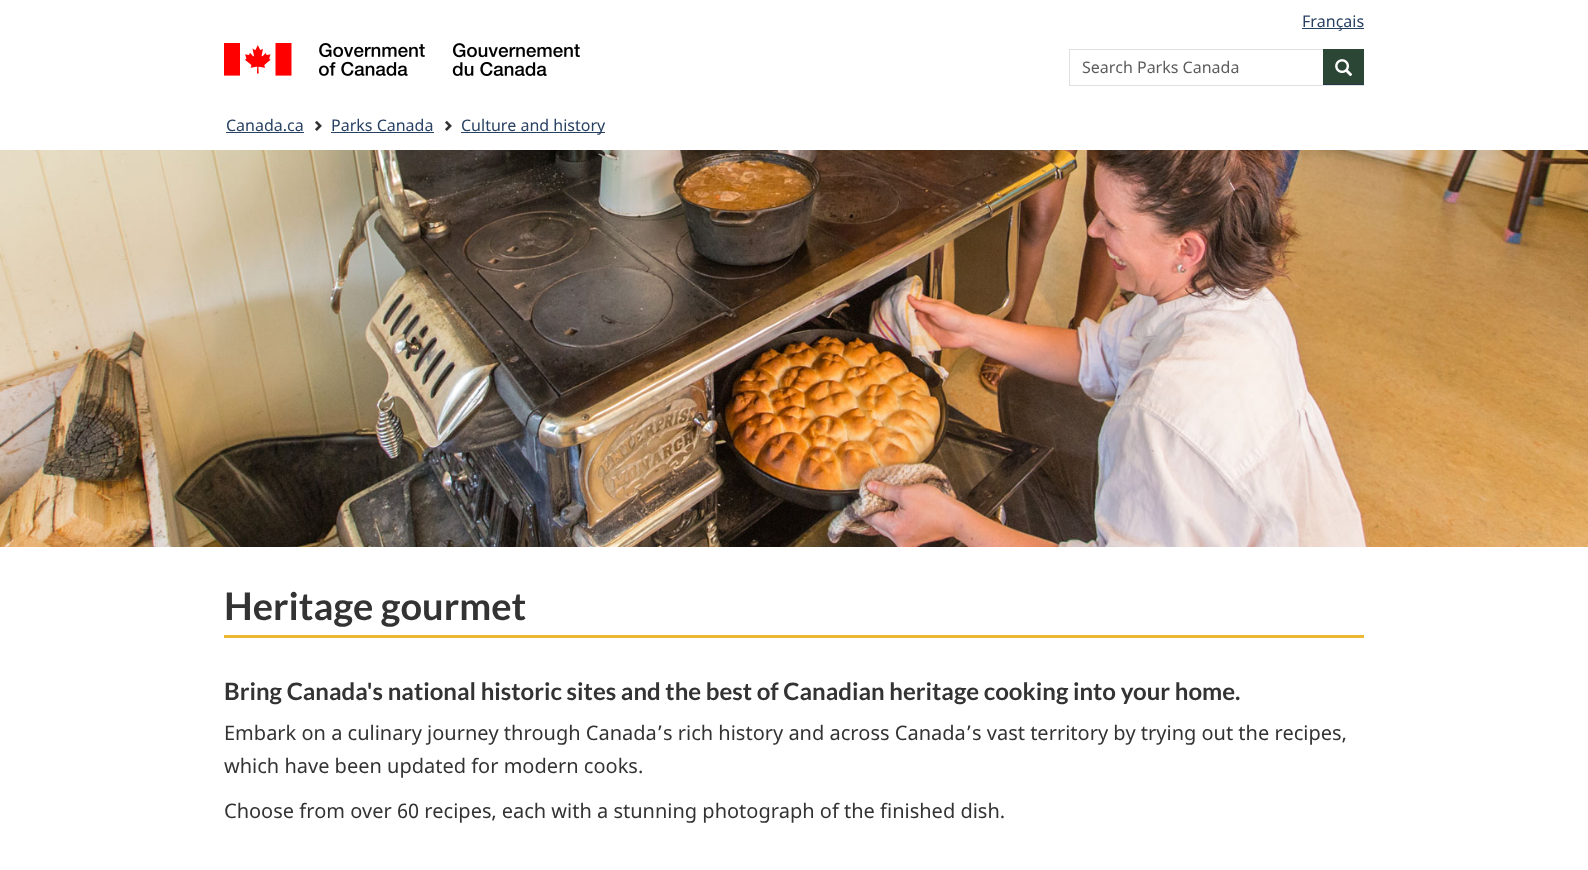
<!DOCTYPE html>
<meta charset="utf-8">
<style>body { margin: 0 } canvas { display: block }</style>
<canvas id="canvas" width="1588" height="870"></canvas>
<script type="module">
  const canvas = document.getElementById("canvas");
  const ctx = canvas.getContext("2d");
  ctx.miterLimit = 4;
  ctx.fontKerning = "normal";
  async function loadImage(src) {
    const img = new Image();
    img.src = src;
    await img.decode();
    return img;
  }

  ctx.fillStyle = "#ffffff";
  ctx.fillRect(0, 0, 1588, 870);
  ctx.fillStyle = "#284162";
  ctx.fillRect(1302, 28, 62, 1);
  ctx.font = "16px Noto Sans";
  ctx.fillText("Français", 1302, 27);
  ctx.drawImage(await loadImage("img1.png"), 224, 43, 356, 33);
  ctx.strokeStyle = "#e0e0e0";
  ctx.strokeRect(1069.5, 49.5, 294, 36);
  ctx.fillStyle = "#5c5c5c";
  ctx.fillText("Search Parks Canada", 1082, 73);
  ctx.fillStyle = "#2b4635";
  ctx.fillRect(1323, 49, 41, 35);
  ctx.fillStyle = "#26374a";
  ctx.fillRect(1323, 84, 41, 1);
  ctx.drawImage(await loadImage("img2.png"), 1335, 59, 18, 18);
  ctx.fillStyle = "#284162";
  ctx.fillText("Canada.ca", 226, 131);
  ctx.fillRect(226, 132, 78, 1);
  ctx.drawImage(await loadImage("img3.png"), 315, 120, 7, 11);
  ctx.fillText("Parks Canada", 331, 131);
  ctx.fillRect(331, 132, 103, 1);
  ctx.drawImage(await loadImage("img3.png"), 445, 120, 7, 11);
  ctx.fillRect(461, 132, 144, 1);
  ctx.fillText("Culture and history", 461, 131);
  ctx.drawImage(await loadImage("img4.png"), 0, 150, 1588, 397);
  ctx.fillStyle = "#ecb731";
  ctx.fillRect(224, 635, 1140, 3);
  ctx.font = "bold 38px Lato";
  ctx.fillStyle = "#333333";
  ctx.fillText("Heritage gourmet", 224, 620);
  ctx.font = "bold 24px Lato";
  ctx.fillText("Bring Canada's national historic sites and the best of Canadian heritage cooking into your home.", 224, 700);
  ctx.font = "20px Noto Sans";
  ctx.fillText("Embark on a culinary journey through Canada’s rich history and across Canada’s vast territory by trying out the recipes,", 224, 740);
  ctx.fillText("which have been updated for modern cooks.", 224, 773);
  ctx.fillText("Choose from over 60 recipes, each with a stunning photograph of the finished dish.", 224, 818);
</script>
